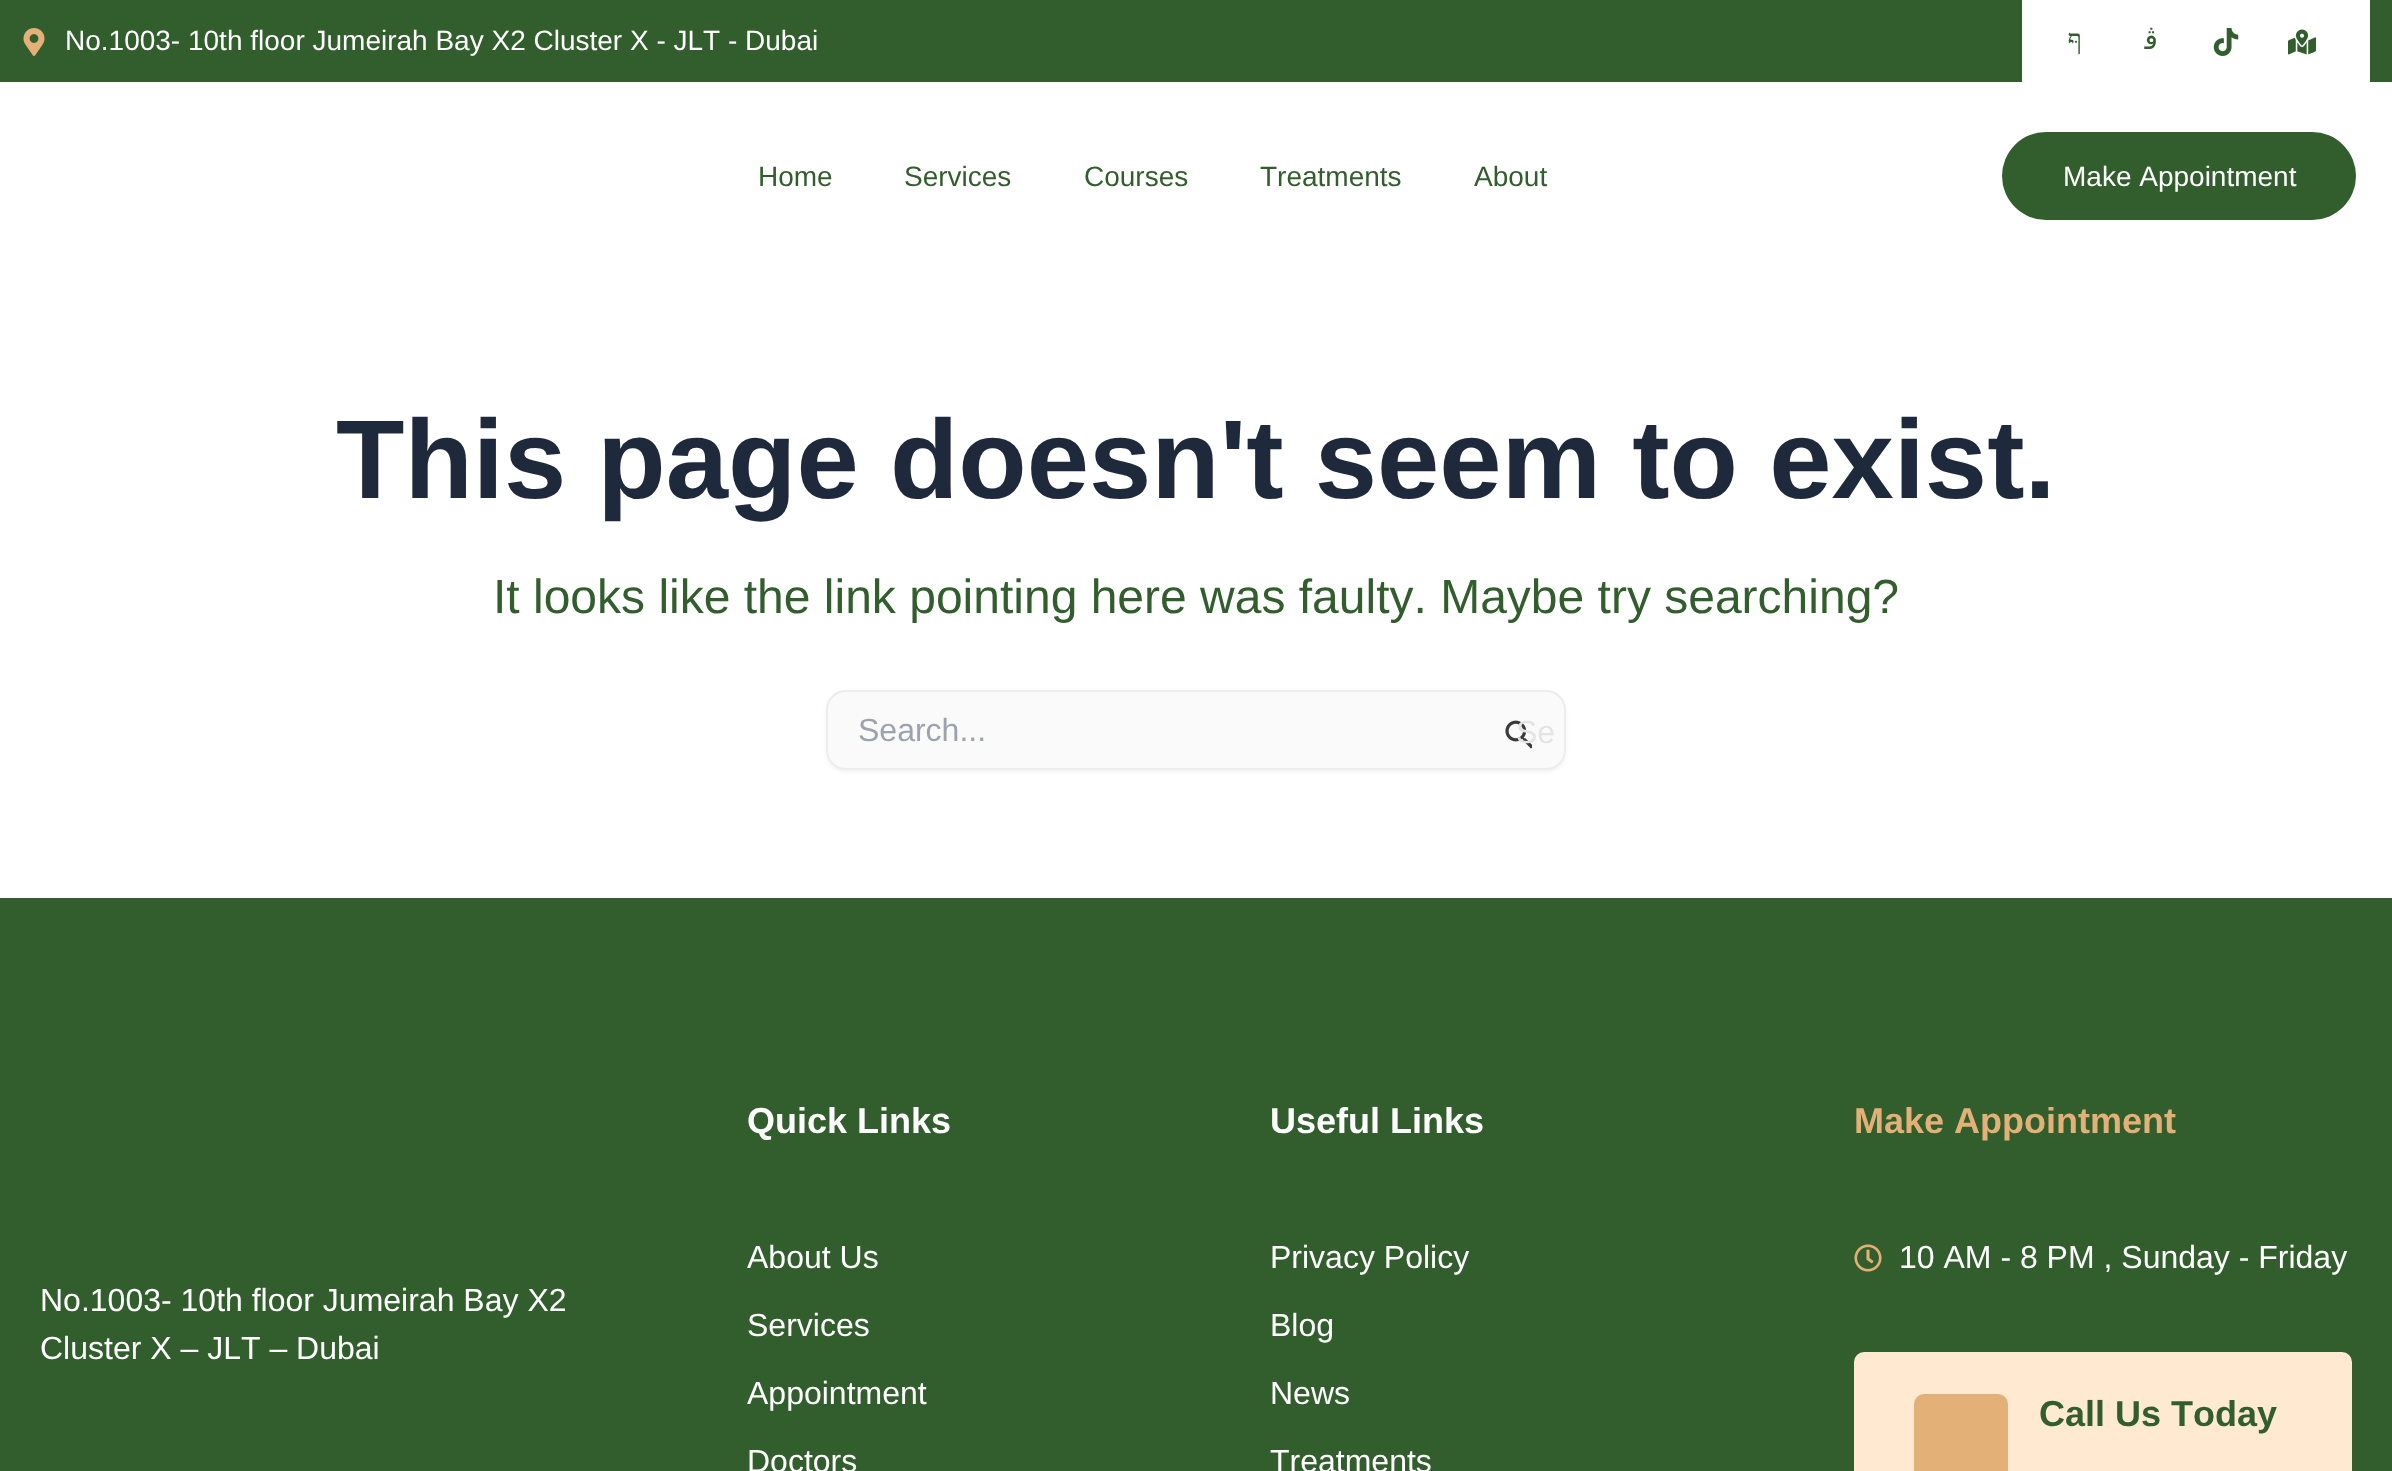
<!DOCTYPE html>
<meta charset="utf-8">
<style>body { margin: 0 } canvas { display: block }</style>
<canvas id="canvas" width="2392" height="1471"></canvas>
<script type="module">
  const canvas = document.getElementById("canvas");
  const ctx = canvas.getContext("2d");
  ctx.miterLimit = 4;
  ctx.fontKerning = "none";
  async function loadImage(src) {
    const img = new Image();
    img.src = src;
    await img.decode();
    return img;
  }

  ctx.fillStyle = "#ffffff";
  ctx.fillRect(0, 0, 2392, 1471);
  ctx.fillStyle = "#325e2d";
  ctx.fillRect(0, 0, 2392, 82);
  ctx.drawImage(await loadImage("img1.png"), 23, 28, 22, 28);
  ctx.font = "28px Liberation Sans";
  ctx.fillStyle = "#ffffff";
  ctx.fillText("No.1003- 10th floor Jumeirah Bay X2 Cluster X - JLT - Dubai", 65, 50);
  ctx.fillRect(2022, 0, 348, 82);
  ctx.direction = "rtl";
  ctx.font = "28px Liberation Serif";
  ctx.fillStyle = "#325e2d";
  ctx.fillText("ףּ", 2082, 49);
  ctx.font = "28px DejaVu Sans";
  ctx.fillText("ﭬ", 2158, 49);
  ctx.drawImage(await loadImage("img2.png"), 2213, 28, 26, 28);
  ctx.drawImage(await loadImage("img3.png"), 2288, 29, 28, 26);
  ctx.direction = "ltr";
  ctx.font = "28px Liberation Sans";
  ctx.fillText("Home", 758, 186);
  ctx.fillText("Services", 904, 186);
  ctx.fillText("Courses", 1084, 186);
  ctx.fillText("Treatments", 1260, 186);
  ctx.fillText("About", 1474, 186);
  ctx.beginPath();
  ctx.roundRect(2002, 132, 354, 88, 44);
  ctx.fill();
  ctx.fillStyle = "#ffffff";
  ctx.fillText("Make Appointment", 2063, 186);
  ctx.font = "bold 112px Liberation Sans";
  ctx.fillStyle = "#1e293b";
  ctx.fillText("This page doesn't seem to exist.", 336, 498);
  ctx.font = "48px Liberation Sans";
  ctx.fillStyle = "#325e2d";
  ctx.fillText("It looks like the link pointing here was faulty. Maybe try searching?", 493, 613);
  ctx.fillStyle = "rgba(0, 0, 0, 0.05)";
  ctx.filter = "blur(2px)";
  ctx.beginPath();
  ctx.roundRect(826, 692, 740, 80, 20);
  ctx.fill();
  ctx.filter = "none";
  ctx.fillStyle = "#fafafa";
  ctx.beginPath();
  ctx.roundRect(827, 691, 738, 78, 19);
  ctx.fill();
  ctx.strokeStyle = "#ededed";
  ctx.lineWidth = 2;
  ctx.stroke();
  ctx.font = "32px Liberation Sans";
  ctx.fillStyle = "#9ca3af";
  ctx.fillText("Search...", 858, 741);
  ctx.drawImage(await loadImage("img4.png"), 1505, 720, 27, 29);
  ctx.fillStyle = "#e4e4e4";
  ctx.fillText("Se", 1516, 743);
  ctx.fillStyle = "#325e2d";
  ctx.fillRect(0, 898, 2392, 573);
  ctx.fillStyle = "#ffffff";
  ctx.fillText("No.1003- 10th floor Jumeirah Bay X2", 40, 1311);
  ctx.fillText("Cluster X – JLT – Dubai", 40, 1359);
  ctx.font = "bold 36px Liberation Sans";
  ctx.fillText("Quick Links", 747, 1133);
  ctx.font = "32px Liberation Sans";
  ctx.fillText("About Us", 747, 1268);
  ctx.fillText("Services", 747, 1336);
  ctx.fillText("Appointment", 747, 1404);
  ctx.fillText("Doctors", 747, 1472);
  ctx.font = "bold 36px Liberation Sans";
  ctx.fillText("Useful Links", 1270, 1133);
  ctx.font = "32px Liberation Sans";
  ctx.fillText("Privacy Policy", 1270, 1268);
  ctx.fillText("Blog", 1270, 1336);
  ctx.fillText("News", 1270, 1404);
  ctx.fillText("Treatments", 1270, 1472);
  ctx.font = "bold 36px Liberation Sans";
  ctx.fillStyle = "#e3b077";
  ctx.fillText("Make Appointment", 1854, 1133);
  ctx.drawImage(await loadImage("img5.png"), 1854, 1244, 28, 28);
  ctx.font = "32px Liberation Sans";
  ctx.fillStyle = "#ffffff";
  ctx.fillText("10 AM - 8 PM , Sunday - Friday", 1899, 1268);
  ctx.fillStyle = "#ffe9d0";
  ctx.beginPath();
  ctx.roundRect(1854, 1352, 498, 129, 10);
  ctx.fill();
  ctx.fillStyle = "#e3b077";
  ctx.beginPath();
  ctx.roundRect(1914, 1394, 94, 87, 10);
  ctx.fill();
  ctx.font = "bold 36px Liberation Sans";
  ctx.fillStyle = "#325e2d";
  ctx.fillText("Call Us Today", 2039, 1426);
</script>
